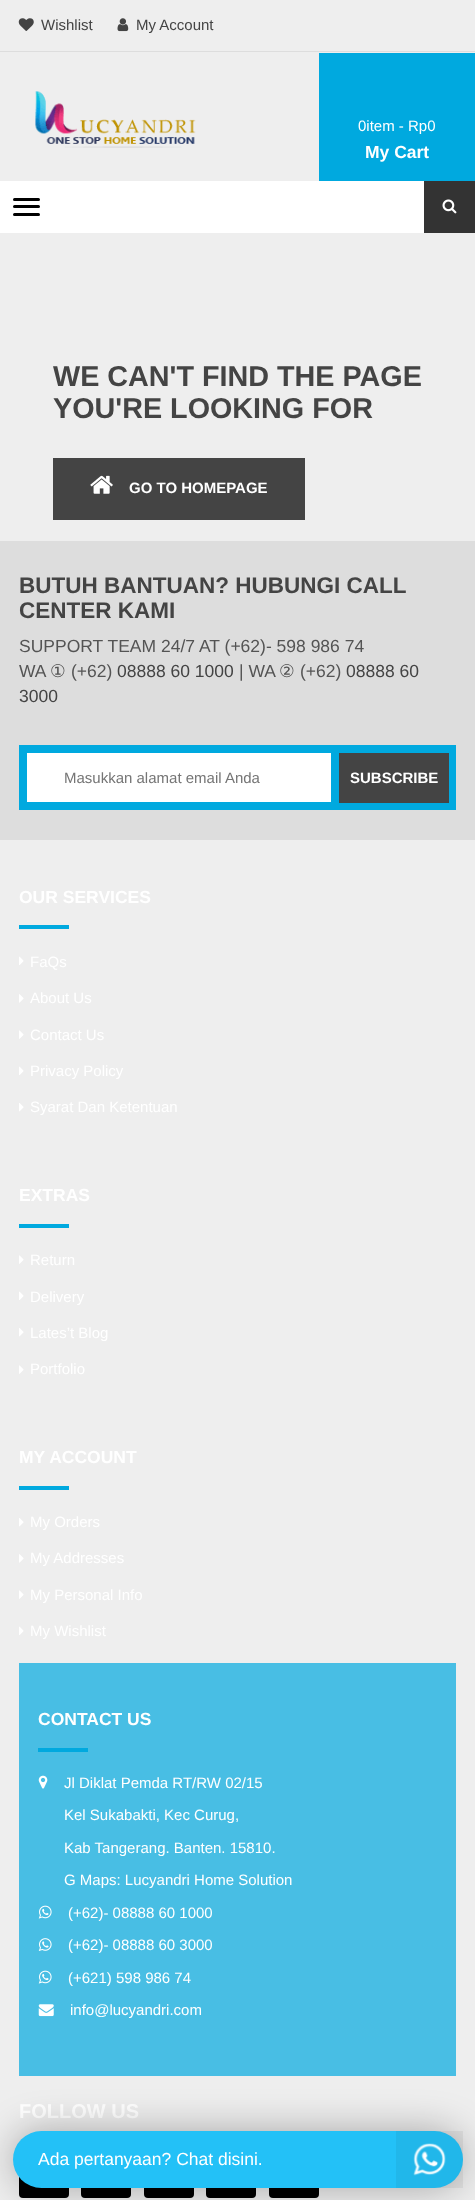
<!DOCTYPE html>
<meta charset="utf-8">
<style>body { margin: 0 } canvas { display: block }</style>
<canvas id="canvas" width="475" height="2200"></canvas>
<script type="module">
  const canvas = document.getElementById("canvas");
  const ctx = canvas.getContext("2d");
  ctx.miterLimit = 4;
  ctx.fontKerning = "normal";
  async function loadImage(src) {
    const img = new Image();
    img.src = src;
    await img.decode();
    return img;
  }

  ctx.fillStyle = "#eeeeee";
  ctx.fillRect(0, 0, 475, 2200);
  ctx.fillStyle = "#dddddd";
  ctx.fillRect(0, 51, 475, 1);
  ctx.drawImage(await loadImage("img1.png"), 18, 18, 16, 13);
  ctx.font = "15px Liberation Sans";
  ctx.fillStyle = "#444444";
  ctx.fillText("Wishlist", 41, 30);
  ctx.drawImage(await loadImage("img2.png"), 117, 18, 12, 14);
  ctx.fillText("My Account", 136, 30);
  ctx.drawImage(await loadImage("img3.png"), 35, 91, 161, 57);
  ctx.fillStyle = "#00a9df";
  ctx.fillRect(319, 53, 156, 128);
  ctx.fillStyle = "#ffffff";
  ctx.fillText("0item - Rp0", 358, 131);
  ctx.font = "bold 17.5px Liberation Sans";
  ctx.fillText("My Cart", 365, 158);
  ctx.fillRect(0, 181, 424, 52);
  ctx.fillStyle = "#000000";
  ctx.beginPath();
  ctx.roundRect(13, 198, 27, 3, 1.5);
  ctx.fill();
  ctx.beginPath();
  ctx.roundRect(13, 205, 27, 3, 1.5);
  ctx.fill();
  ctx.beginPath();
  ctx.roundRect(13, 213, 27, 3, 1.5);
  ctx.fill();
  ctx.fillStyle = "#333333";
  ctx.fillRect(424, 181, 51, 52);
  ctx.drawImage(await loadImage("img4.png"), 442, 199, 15, 15);
  ctx.font = "bold 28.75px Liberation Sans";
  ctx.fillStyle = "#444444";
  ctx.fillText("WE CAN'T FIND THE PAGE", 53, 386);
  ctx.fillText("YOU'RE LOOKING FOR", 53, 418);
  ctx.fillRect(53, 458, 252, 62);
  ctx.drawImage(await loadImage("img5.png"), 90, 475, 23, 19);
  ctx.font = "bold 15px Liberation Sans";
  ctx.fillStyle = "#ffffff";
  ctx.fillText("GO TO HOMEPAGE", 129, 493);
  ctx.fillStyle = "#dddddd";
  ctx.fillRect(0, 541, 475, 299);
  ctx.font = "bold 22.5px Liberation Sans";
  ctx.fillStyle = "#444444";
  ctx.fillText("BUTUH BANTUAN? HUBUNGI CALL", 19, 593);
  ctx.fillText("CENTER KAMI", 19, 618);
  ctx.font = "17.5px Liberation Sans";
  ctx.fillStyle = "#545454";
  ctx.fillText("SUPPORT TEAM 24/7 AT (+62)- 598 986 74", 19, 652);
  ctx.fillText("WA", 19, 677);
  ctx.font = "17.5px DejaVu Sans";
  ctx.fillText("①", 50, 677);
  ctx.font = "17.5px Liberation Sans";
  ctx.fillText("(+62)", 71, 677);
  ctx.fillStyle = "#444444";
  ctx.fillText("08888 60 1000", 117, 677);
  ctx.fillStyle = "#545454";
  ctx.fillText("| WA", 239, 677);
  ctx.font = "17.5px DejaVu Sans";
  ctx.fillText("②", 279, 677);
  ctx.font = "17.5px Liberation Sans";
  ctx.fillText("(+62)", 300, 677);
  ctx.fillStyle = "#444444";
  ctx.fillText("08888 60", 346, 677);
  ctx.fillText("3000", 19, 702);
  ctx.fillStyle = "#ffffff";
  ctx.fillRect(27, 753, 304, 49);
  ctx.strokeStyle = "#00a9df";
  ctx.lineWidth = 8;
  ctx.strokeRect(23, 749, 429, 57);
  ctx.fillStyle = "#00a9df";
  ctx.fillRect(331, 753, 8, 50);
  ctx.font = "15px Liberation Sans";
  ctx.fillStyle = "#757575";
  ctx.fillText("Masukkan alamat email Anda", 64, 783);
  ctx.fillStyle = "#444444";
  ctx.fillRect(339, 753, 110, 50);
  ctx.font = "bold 15px Liberation Sans";
  ctx.fillStyle = "#ffffff";
  ctx.fillText("SUBSCRIBE", 350, 783);
  ctx.font = "bold 17.5px Liberation Sans";
  ctx.fillText("OUR SERVICES", 19, 903);
  ctx.fillStyle = "#00a9df";
  ctx.fillRect(19, 925, 50, 4);
  ctx.drawImage(await loadImage("img6.png"), 19, 956, 5, 9);
  ctx.font = "15px Liberation Sans";
  ctx.fillStyle = "#ffffff";
  ctx.fillText("FaQs", 30, 967);
  ctx.drawImage(await loadImage("img7.png"), 19, 994, 5, 9);
  ctx.fillText("About Us", 30, 1003);
  ctx.drawImage(await loadImage("img8.png"), 19, 1030, 5, 9);
  ctx.fillText("Contact Us", 30, 1040);
  ctx.drawImage(await loadImage("img6.png"), 19, 1066, 5, 9);
  ctx.fillText("Privacy Policy", 30, 1076);
  ctx.drawImage(await loadImage("img9.png"), 19, 1103, 5, 9);
  ctx.fillText("Syarat Dan Ketentuan", 30, 1112);
  ctx.font = "bold 17.5px Liberation Sans";
  ctx.fillText("EXTRAS", 19, 1201);
  ctx.fillStyle = "#00a9df";
  ctx.fillRect(19, 1224, 50, 4);
  ctx.drawImage(await loadImage("img8.png"), 19, 1255, 5, 9);
  ctx.font = "15px Liberation Sans";
  ctx.fillStyle = "#ffffff";
  ctx.fillText("Return", 30, 1265);
  ctx.drawImage(await loadImage("img6.png"), 19, 1291, 5, 9);
  ctx.fillText("Delivery", 30, 1302);
  ctx.drawImage(await loadImage("img9.png"), 19, 1328, 5, 9);
  ctx.fillText("Lates’t Blog", 30, 1338);
  ctx.drawImage(await loadImage("img8.png"), 19, 1365, 5, 9);
  ctx.fillText("Portfolio", 30, 1374);
  ctx.font = "bold 17.5px Liberation Sans";
  ctx.fillText("MY ACCOUNT", 19, 1463);
  ctx.fillStyle = "#00a9df";
  ctx.fillRect(19, 1486, 50, 4);
  ctx.drawImage(await loadImage("img9.png"), 19, 1518, 5, 9);
  ctx.font = "15px Liberation Sans";
  ctx.fillStyle = "#ffffff";
  ctx.fillText("My Orders", 30, 1527);
  ctx.drawImage(await loadImage("img7.png"), 19, 1554, 5, 9);
  ctx.fillText("My Addresses", 30, 1563);
  ctx.drawImage(await loadImage("img8.png"), 19, 1590, 5, 9);
  ctx.fillText("My Personal Info", 30, 1600);
  ctx.drawImage(await loadImage("img6.png"), 19, 1626, 5, 9);
  ctx.fillText("My Wishlist", 30, 1636);
  ctx.fillStyle = "#48bee4";
  ctx.fillRect(19, 1663, 437, 413);
  ctx.font = "bold 17.5px Liberation Sans";
  ctx.fillStyle = "#ffffff";
  ctx.fillText("CONTACT US", 38, 1725);
  ctx.fillStyle = "#00a9df";
  ctx.fillRect(38, 1748, 50, 4);
  ctx.drawImage(await loadImage("img10.png"), 38, 1775, 10, 14);
  ctx.font = "15px Liberation Sans";
  ctx.fillStyle = "#ffffff";
  ctx.fillText("Jl Diklat Pemda RT/RW 02/15", 64, 1788);
  ctx.fillText("Kel Sukabakti, Kec Curug,", 64, 1820);
  ctx.fillText("Kab Tangerang. Banten. 15810.", 64, 1853);
  ctx.fillText("G Maps: Lucyandri Home Solution", 64, 1885);
  ctx.drawImage(await loadImage("img11.png"), 38, 1905, 14, 14);
  ctx.fillText("(+62)- 08888 60 1000", 68, 1918);
  ctx.drawImage(await loadImage("img12.png"), 38, 1938, 14, 13);
  ctx.fillText("(+62)- 08888 60 3000", 68, 1950);
  ctx.drawImage(await loadImage("img11.png"), 38, 1970, 14, 14);
  ctx.fillText("(+621) 598 986 74", 68, 1983);
  ctx.drawImage(await loadImage("img13.png"), 38, 2004, 16, 13);
  ctx.fillText("info@lucyandri.com", 70, 2015);
  ctx.font = "bold 20px Liberation Sans";
  ctx.fillText("FOLLOW US", 19, 2118);
  ctx.fillStyle = "#000000";
  ctx.beginPath();
  ctx.roundRect(19, 2148, 50, 50, 4);
  ctx.fill();
  ctx.beginPath();
  ctx.roundRect(81, 2148, 50, 50, 4);
  ctx.fill();
  ctx.beginPath();
  ctx.roundRect(144, 2148, 50, 50, 4);
  ctx.fill();
  ctx.beginPath();
  ctx.roundRect(206, 2148, 50, 50, 4);
  ctx.fill();
  ctx.beginPath();
  ctx.roundRect(269, 2148, 50, 50, 4);
  ctx.fill();
  ctx.fillStyle = "rgba(0, 0, 0, 0.3)";
  ctx.filter = "blur(19px)";
  ctx.beginPath();
  ctx.roundRect(13, 2131, 450, 57, 28.5);
  ctx.fill();
  ctx.filter = "none";
  ctx.fillStyle = "#23c1f7";
  ctx.beginPath();
  ctx.roundRect(13, 2131, 450, 57, 28.5);
  ctx.fill();
  ctx.font = "17.5px Liberation Sans";
  ctx.fillStyle = "#ffffff";
  ctx.fillText("Ada pertanyaan? Chat disini.", 38, 2165);
  ctx.fillStyle = "rgba(0, 0, 0, 0.05)";
  ctx.fillRect(396, 2131, 67, 57);
  ctx.drawImage(await loadImage("img14.png"), 413, 2143, 33, 33);
</script>
